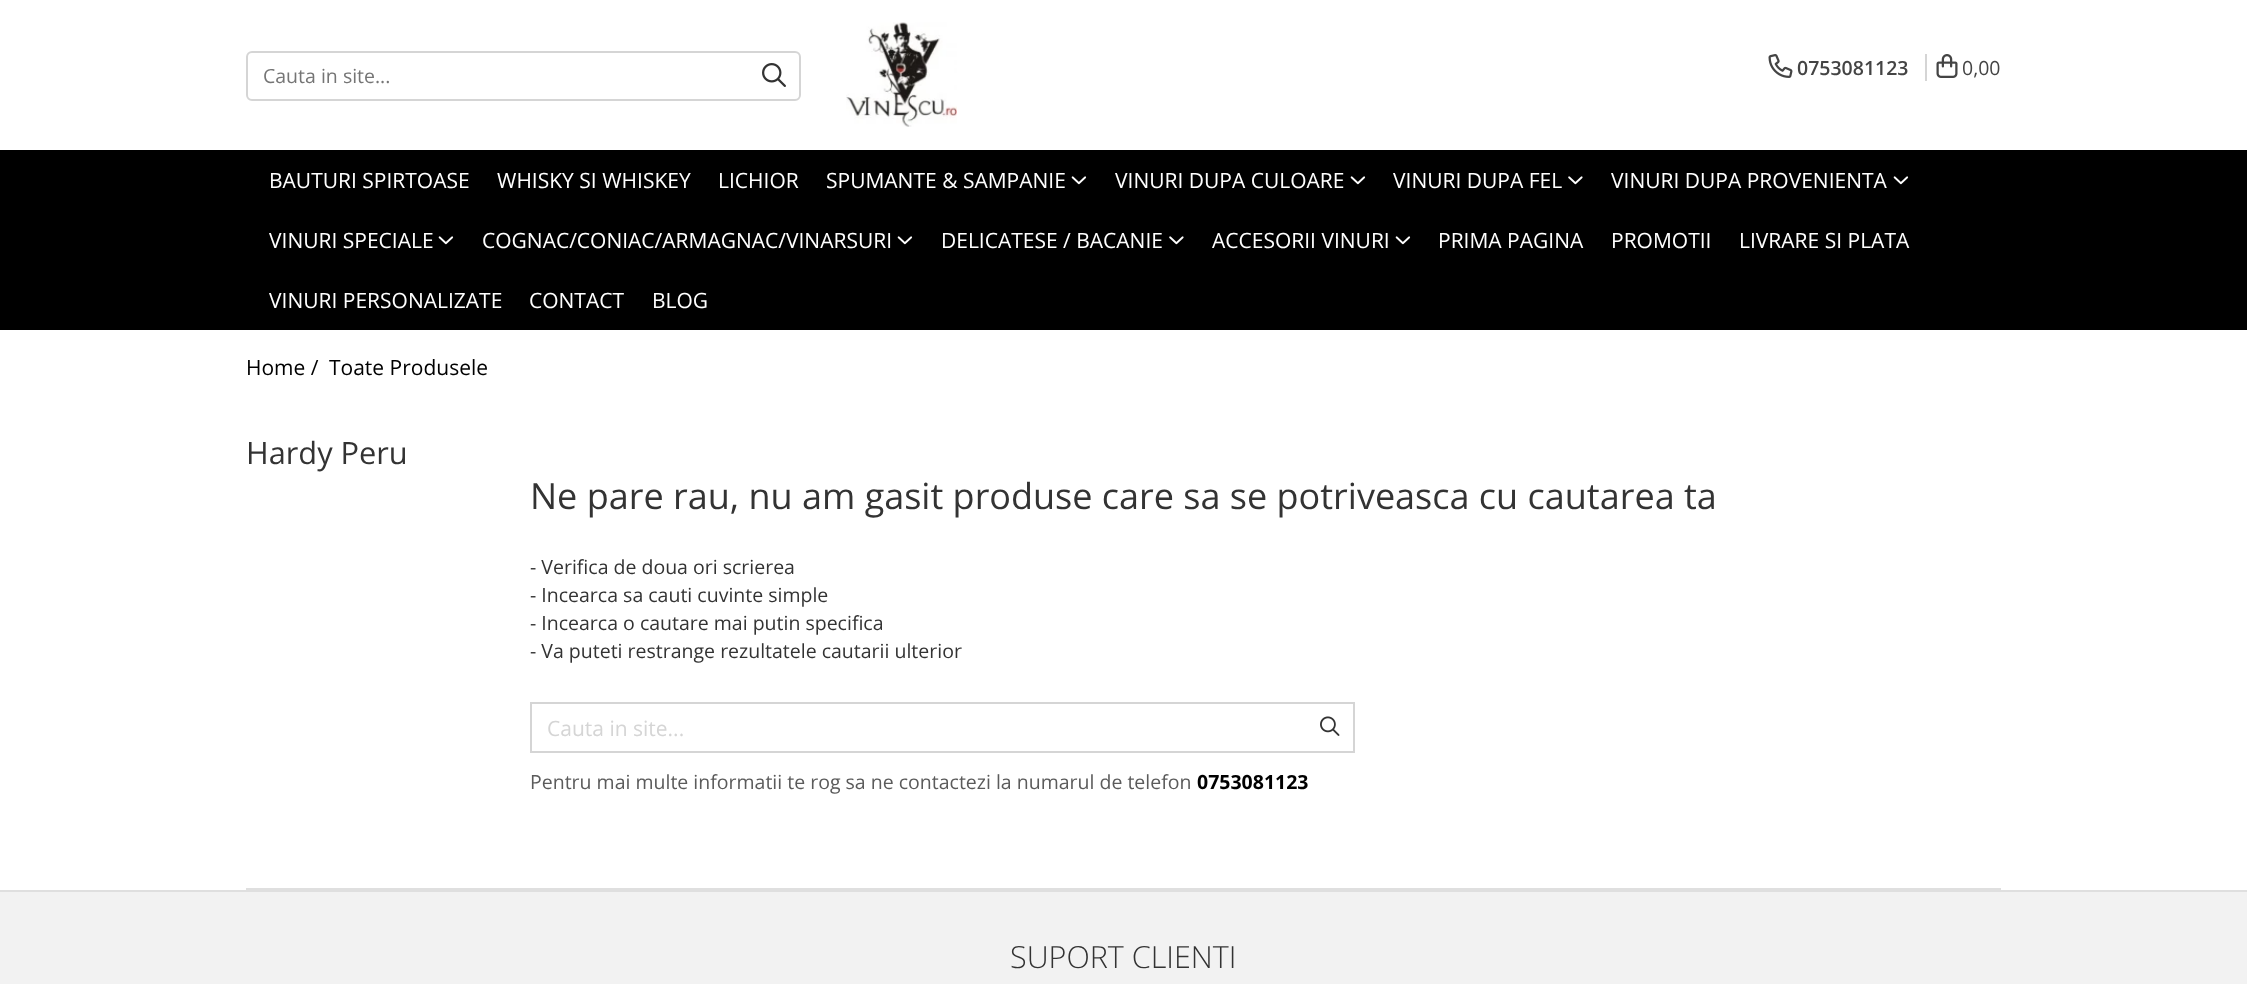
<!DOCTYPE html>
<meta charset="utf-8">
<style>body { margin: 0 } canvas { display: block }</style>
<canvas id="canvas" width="2247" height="984"></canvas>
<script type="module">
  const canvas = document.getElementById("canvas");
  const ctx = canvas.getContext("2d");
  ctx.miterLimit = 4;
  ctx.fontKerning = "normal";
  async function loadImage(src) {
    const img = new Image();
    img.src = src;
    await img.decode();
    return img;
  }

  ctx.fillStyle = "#ffffff";
  ctx.fillRect(0, 0, 2247, 984);
  ctx.beginPath();
  ctx.roundRect(247, 52, 553, 48, 5);
  ctx.strokeStyle = "#d5d5d5";
  ctx.lineWidth = 2;
  ctx.stroke();
  ctx.font = "19.5px Open Sans";
  ctx.fillStyle = "#757575";
  ctx.fillText("Cauta in site...", 263, 83);
  ctx.drawImage(await loadImage("img1.png"), 762, 63, 24, 24);
  ctx.drawImage(await loadImage("img2.png"), 846, 22, 111, 105);
  ctx.drawImage(await loadImage("img3.png"), 1768, 54, 25, 24);
  ctx.font = "600 19.5px Open Sans";
  ctx.fillStyle = "#444444";
  ctx.fillText("0753081123", 1797, 75);
  ctx.fillStyle = "#d5d5d5";
  ctx.fillRect(1925, 54, 2, 27);
  ctx.drawImage(await loadImage("img4.png"), 1936, 54, 22, 24);
  ctx.font = "19.5px Open Sans";
  ctx.fillStyle = "#444444";
  ctx.fillText("0,00", 1962, 75);
  ctx.fillStyle = "#000000";
  ctx.fillRect(0, 150, 2247, 180);
  ctx.font = "21px Open Sans";
  ctx.fillStyle = "#ffffff";
  ctx.fillText("BAUTURI SPIRTOASE", 269, 188);
  ctx.fillText("WHISKY SI WHISKEY", 497, 188);
  ctx.fillText("LICHIOR", 718, 188);
  ctx.fillText("SPUMANTE & SAMPANIE", 826, 188);
  ctx.drawImage(await loadImage("img5.png"), 1071, 176, 16, 9);
  ctx.fillText("VINURI DUPA CULOARE", 1115, 188);
  ctx.drawImage(await loadImage("img5.png"), 1350, 176, 16, 9);
  ctx.fillText("VINURI DUPA FEL", 1393, 188);
  ctx.drawImage(await loadImage("img6.png"), 1568, 176, 15, 9);
  ctx.fillText("VINURI DUPA PROVENIENTA", 1611, 188);
  ctx.drawImage(await loadImage("img5.png"), 1893, 176, 16, 9);
  ctx.fillText("VINURI SPECIALE", 269, 248);
  ctx.drawImage(await loadImage("img5.png"), 438, 236, 16, 9);
  ctx.fillText("COGNAC/CONIAC/ARMAGNAC/VINARSURI", 482, 248);
  ctx.drawImage(await loadImage("img5.png"), 897, 236, 16, 9);
  ctx.fillText("DELICATESE / BACANIE", 941, 248);
  ctx.drawImage(await loadImage("img6.png"), 1169, 236, 15, 9);
  ctx.fillText("ACCESORII VINURI", 1212, 248);
  ctx.drawImage(await loadImage("img5.png"), 1395, 236, 16, 9);
  ctx.fillText("PRIMA PAGINA", 1438, 248);
  ctx.fillText("PROMOTII", 1611, 248);
  ctx.fillText("LIVRARE SI PLATA", 1739, 248);
  ctx.fillText("VINURI PERSONALIZATE", 269, 308);
  ctx.fillText("CONTACT", 529, 308);
  ctx.fillText("BLOG", 652, 308);
  ctx.fillStyle = "#000000";
  ctx.fillText("Home /", 246, 375);
  ctx.fillText("Toate Produsele", 329, 375);
  ctx.font = "30.75px Open Sans";
  ctx.fillStyle = "#333333";
  ctx.fillText("Hardy Peru", 246, 464);
  ctx.fillStyle = "#dfdfdf";
  ctx.fillRect(246, 888, 1755, 2);
  ctx.font = "36px Open Sans";
  ctx.fillStyle = "#333333";
  ctx.fillText("Ne pare rau, nu am gasit produse care sa se potriveasca cu cautarea ta", 530, 509);
  ctx.font = "19.5px Open Sans";
  ctx.fillText("- Verifica de doua ori scrierea", 530, 574);
  ctx.fillText("- Incearca sa cauti cuvinte simple", 530, 602);
  ctx.fillText("- Incearca o cautare mai putin specifica", 530, 630);
  ctx.fillText("- Va puteti restrange rezultatele cautarii ulterior", 530, 658);
  ctx.strokeRect(531, 703, 823, 49);
  ctx.font = "21px Open Sans";
  ctx.fillStyle = "#d5d5d5";
  ctx.fillText("Cauta in site...", 547, 736);
  ctx.drawImage(await loadImage("img7.png"), 1320, 716, 20, 20);
  ctx.font = "19.5px Open Sans";
  ctx.fillStyle = "#5b5b5b";
  ctx.fillText("Pentru mai multe informatii te rog sa ne contactezi la numarul de telefon", 530, 789);
  ctx.font = "bold 19.5px Open Sans";
  ctx.fillStyle = "#000000";
  ctx.fillText("0753081123", 1197, 789);
  ctx.fillStyle = "#f2f2f2";
  ctx.fillRect(0, 892, 2247, 92);
  ctx.fillStyle = "#dfdfdf";
  ctx.fillRect(0, 890, 2247, 2);
  ctx.font = "300 30.5px Open Sans";
  ctx.fillStyle = "#333333";
  ctx.fillText("SUPORT CLIENTI", 1010, 968);
</script>
